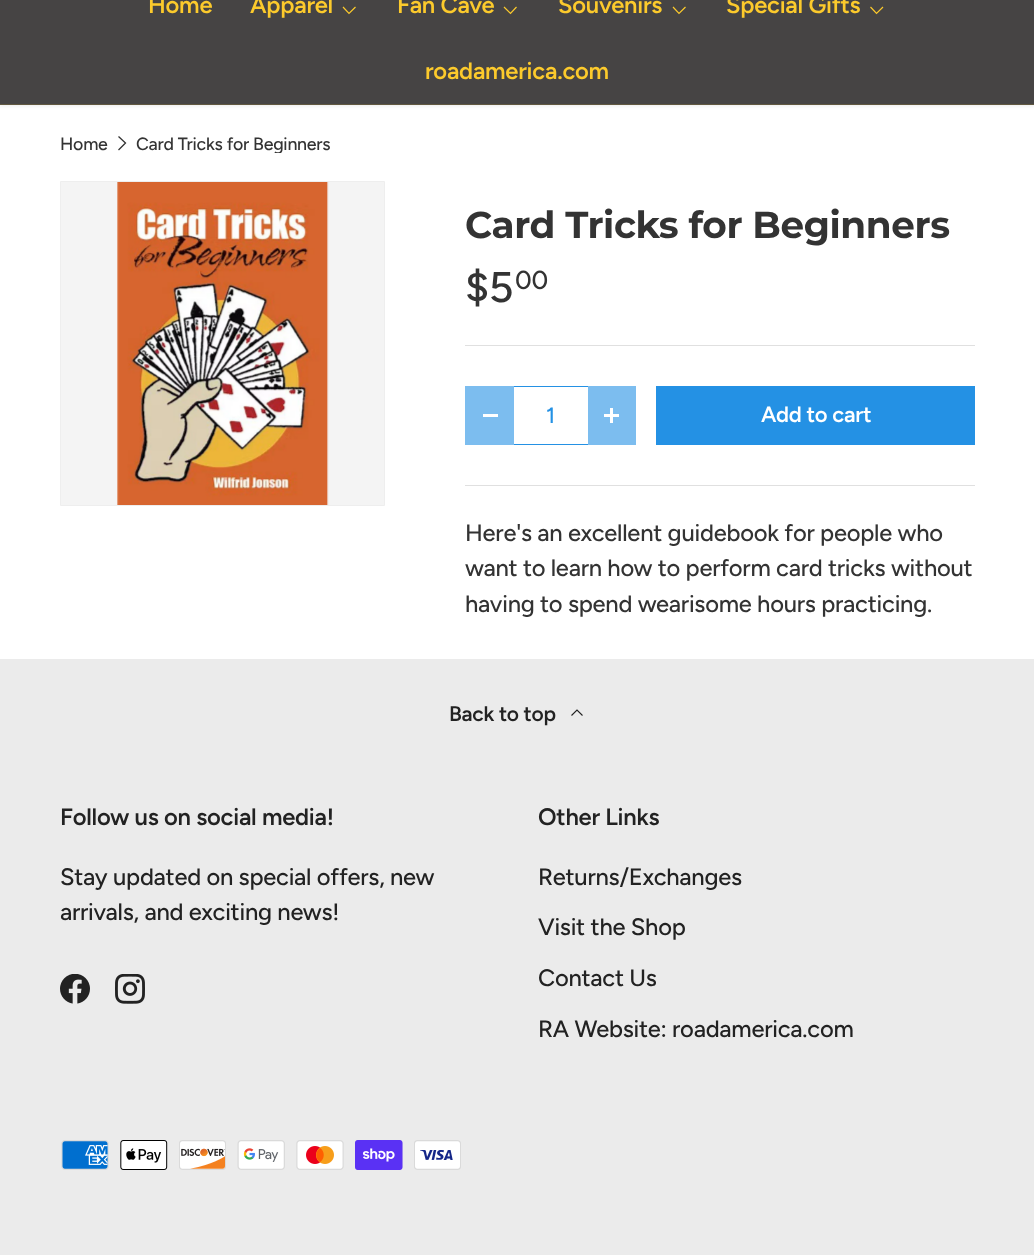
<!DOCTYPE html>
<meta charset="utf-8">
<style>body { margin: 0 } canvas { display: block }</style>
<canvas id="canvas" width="1034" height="1255"></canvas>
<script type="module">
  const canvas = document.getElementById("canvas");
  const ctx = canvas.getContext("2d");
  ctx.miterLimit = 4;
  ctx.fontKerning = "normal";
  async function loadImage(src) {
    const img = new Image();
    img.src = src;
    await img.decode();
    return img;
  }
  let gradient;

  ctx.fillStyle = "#ffffff";
  ctx.fillRect(0, 0, 1034, 1255);
  ctx.fillStyle = "rgba(0, 0, 0, 0.08)";
  ctx.filter = "blur(2px)";
  ctx.beginPath();
  ctx.rect(-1, -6, 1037, 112);
  ctx.fill();
  ctx.filter = "none";
  ctx.fillStyle = "#464444";
  ctx.fillRect(0, 0, 1034, 104);
  ctx.letterSpacing = "-0.25px";
  ctx.font = "600 23.75px Figtree";
  ctx.fillStyle = "#fcca2c";
  ctx.fillText("Home", 148, 13);
  ctx.fillText("Apparel", 250, 13);
  ctx.beginPath();
  ctx.moveTo(355.5, 7);
  ctx.lineTo(349, 13.5);
  ctx.lineTo(343, 7);
  ctx.strokeStyle = "#fcca2c";
  ctx.lineWidth = 1.2;
  ctx.stroke();
  ctx.fillText("Fan Cave", 397, 13);
  ctx.beginPath();
  ctx.moveTo(516.5, 7);
  ctx.lineTo(510.5, 13.5);
  ctx.lineTo(504, 7);
  ctx.stroke();
  ctx.fillText("Souvenirs", 558, 13);
  ctx.beginPath();
  ctx.moveTo(685.5, 7);
  ctx.lineTo(679, 13.5);
  ctx.lineTo(673, 7);
  ctx.stroke();
  ctx.fillText("Special Gifts", 726, 13);
  ctx.beginPath();
  ctx.moveTo(883, 7);
  ctx.lineTo(876.5, 13.5);
  ctx.lineTo(870.5, 7);
  ctx.stroke();
  ctx.fillText("roadamerica.com", 425, 79);
  ctx.fillStyle = "#615840";
  ctx.fillRect(0, 104, 1034, 1);
  ctx.font = "500 17.75px Figtree";
  ctx.fillStyle = "#333333";
  ctx.fillText("Home", 60, 150);
  ctx.beginPath();
  ctx.moveTo(118.5, 136.5);
  ctx.lineTo(125.5, 143);
  ctx.lineTo(118.5, 150);
  ctx.strokeStyle = "#333333";
  ctx.lineWidth = 1.3;
  ctx.stroke();
  ctx.save();
  ctx.beginPath();
  ctx.rect(136, 135, 195, 18);
  ctx.clip();
  ctx.fillText("Card Tricks for Beginners", 136, 150);
  ctx.restore();
  ctx.fillStyle = "#f4f4f4";
  ctx.beginPath();
  ctx.rect(60.5, 181.5, 324, 324);
  ctx.fill();
  ctx.strokeStyle = "#eeeeee";
  ctx.lineWidth = 1;
  ctx.stroke();
  ctx.drawImage(await loadImage("img1.png"), 117, 182, 212, 323);
  ctx.letterSpacing = "-0.4px";
  ctx.font = "bold 37.4px Montserrat";
  ctx.fillStyle = "#333333";
  ctx.fillText("Card Tricks for Beginners", 465, 238);
  ctx.letterSpacing = "-0.25px";
  ctx.font = "500 43px Figtree";
  ctx.fillText("$5", 465, 302);
  ctx.font = "500 26px Figtree";
  ctx.fillText("00", 515, 289);
  ctx.fillStyle = "#e0e0e0";
  ctx.fillRect(465, 345, 510, 1);
  ctx.fillStyle = "#7cbdef";
  ctx.fillRect(465, 386, 49, 59);
  ctx.fillStyle = "#ffffff";
  ctx.fillRect(483, 414, 15, 3);
  ctx.fillStyle = "#2491e4";
  ctx.fillRect(514, 444, 74, 1);
  ctx.fillRect(514, 386, 74, 1);
  ctx.letterSpacing = "0px";
  ctx.font = "500 22px Figtree";
  ctx.fillText("1", 546, 423);
  ctx.fillStyle = "#7cbdef";
  ctx.fillRect(588, 386, 48, 59);
  ctx.fillStyle = "#ffffff";
  ctx.fillRect(604, 414, 15, 3);
  ctx.fillRect(610, 408, 3, 15);
  gradient = ctx.createLinearGradient(40, 302, 954, 530);
  gradient.addColorStop(0.6, "#53a9ea");
  gradient.addColorStop(0.6, "#2491e4");
  gradient.addColorStop(1, "#2491e4");
  ctx.fillStyle = gradient;
  ctx.fillRect(656, 386, 319, 59);
  ctx.letterSpacing = "-0.25px";
  ctx.font = "600 22px Figtree";
  ctx.fillStyle = "#ffffff";
  ctx.fillText("Add to cart", 761, 422);
  ctx.fillStyle = "#e0e0e0";
  ctx.fillRect(465, 485, 510, 1);
  ctx.font = "500 23.75px Figtree";
  ctx.fillStyle = "#333333";
  ctx.fillText("Here's an excellent guidebook for people who", 465, 541);
  ctx.fillText("want to learn how to perform card tricks without", 465, 576);
  ctx.fillText("having to spend wearisome hours practicing.", 465, 612);
  ctx.fillStyle = "#ebebeb";
  ctx.fillRect(0, 659, 1034, 596);
  ctx.font = "600 21px Figtree";
  ctx.fillStyle = "#222222";
  ctx.fillText("Back to top", 449, 721);
  ctx.beginPath();
  ctx.moveTo(571.5, 715.5);
  ctx.lineTo(577, 710);
  ctx.lineTo(582.5, 715.5);
  ctx.strokeStyle = "#222222";
  ctx.lineWidth = 1.1;
  ctx.stroke();
  ctx.font = "600 23.75px Figtree";
  ctx.fillText("Follow us on social media!", 60, 825);
  ctx.font = "500 23.75px Figtree";
  ctx.fillText("Stay updated on special offers, new", 60, 885);
  ctx.fillText("arrivals, and exciting news!", 60, 920);
  ctx.drawImage(await loadImage("img2.png"), 60, 974, 30, 30);
  ctx.drawImage(await loadImage("img3.png"), 115, 974, 30, 30);
  ctx.font = "600 23.75px Figtree";
  ctx.fillText("Other Links", 538, 825);
  ctx.font = "500 23.75px Figtree";
  ctx.fillText("Returns/Exchanges", 538, 885);
  ctx.fillText("Visit the Shop", 538, 935);
  ctx.fillText("Contact Us", 538, 986);
  ctx.fillText("RA Website: roadamerica.com", 538, 1037);
  ctx.drawImage(await loadImage("img4.png"), 61, 1140, 48, 30);
  ctx.drawImage(await loadImage("img5.png"), 120, 1140, 48, 30);
  ctx.drawImage(await loadImage("img6.png"), 179, 1140, 47, 30);
  ctx.drawImage(await loadImage("img7.png"), 237, 1140, 48, 30);
  ctx.drawImage(await loadImage("img8.png"), 296, 1140, 48, 30);
  ctx.drawImage(await loadImage("img9.png"), 355, 1140, 48, 30);
  ctx.drawImage(await loadImage("img10.png"), 414, 1140, 47, 30);
</script>
